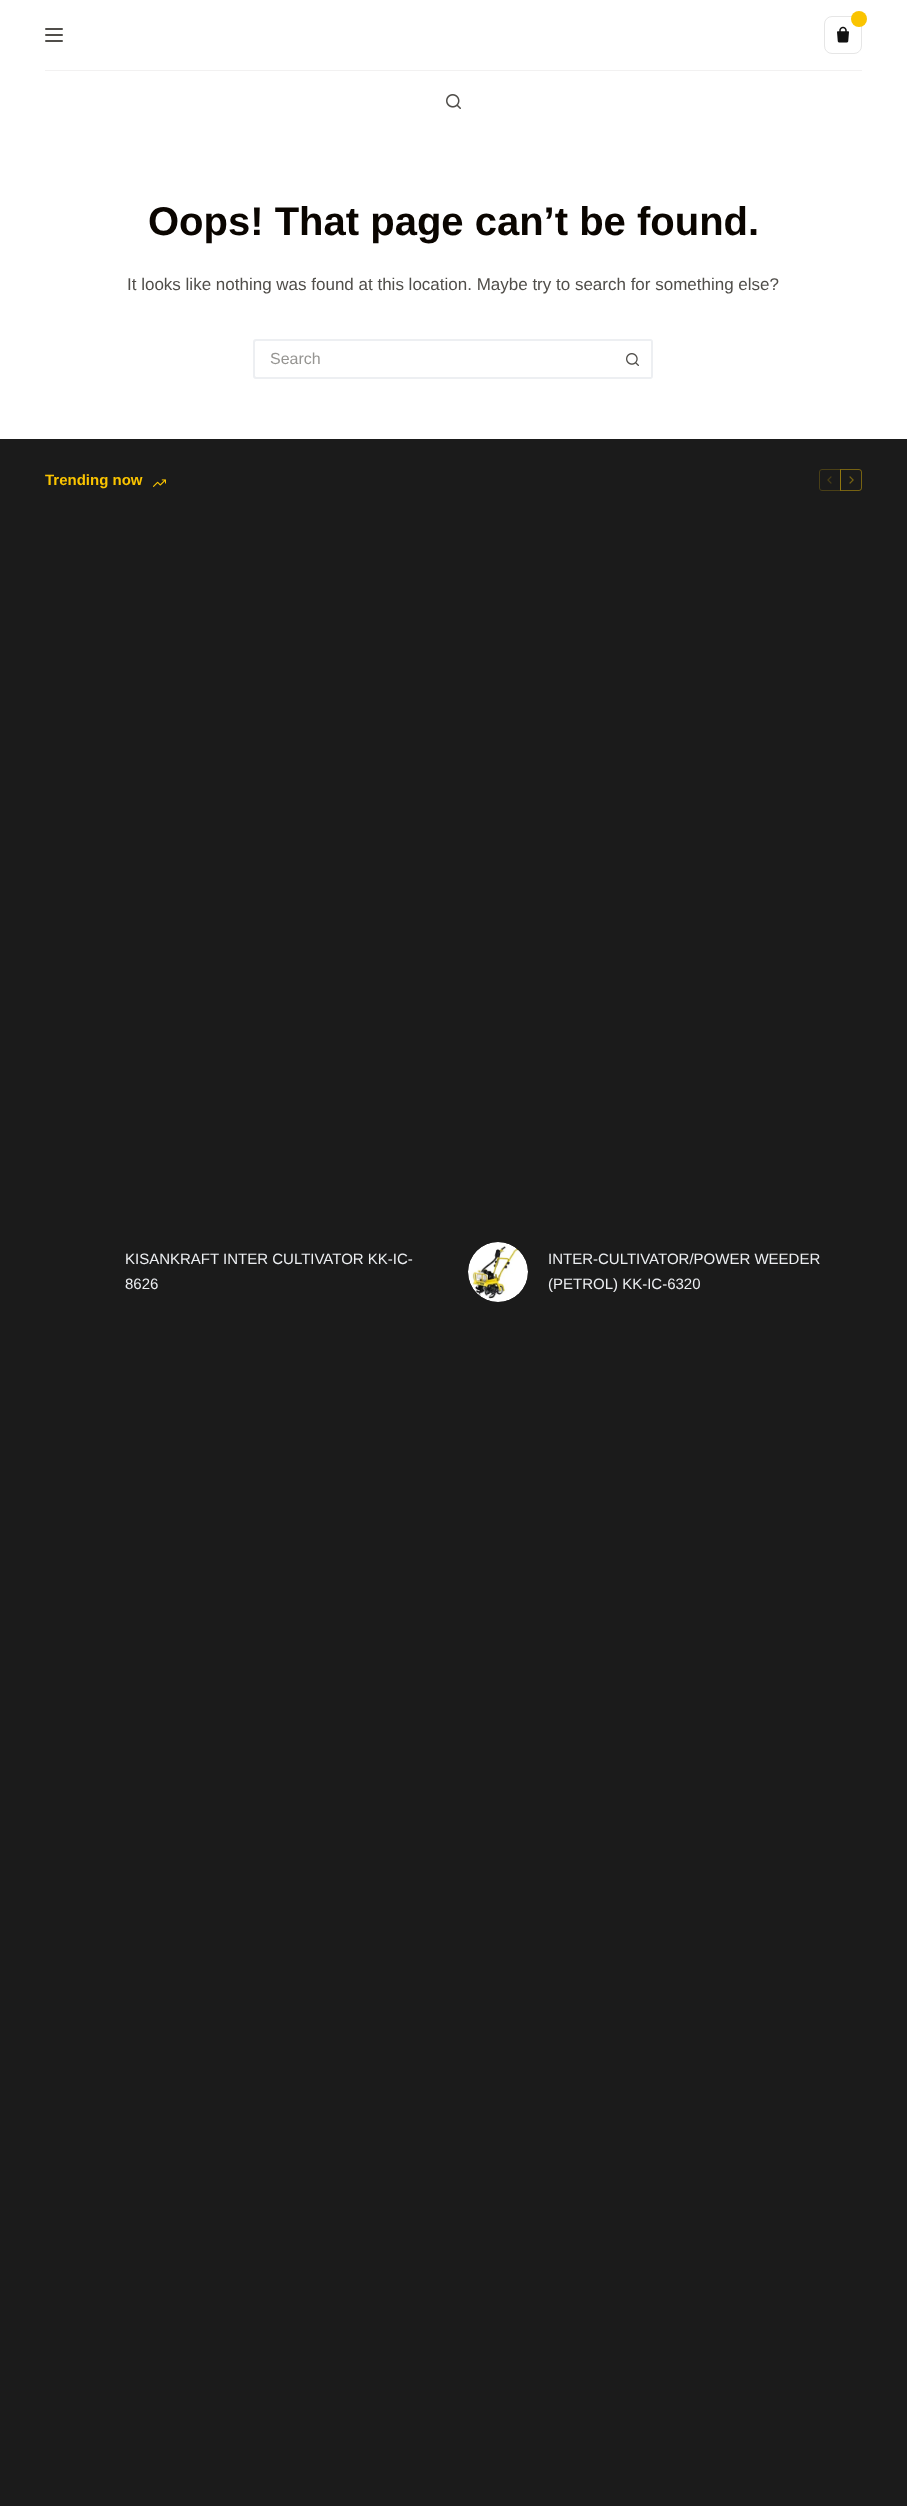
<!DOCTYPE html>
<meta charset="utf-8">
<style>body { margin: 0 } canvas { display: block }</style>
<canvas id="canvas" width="907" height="2506"></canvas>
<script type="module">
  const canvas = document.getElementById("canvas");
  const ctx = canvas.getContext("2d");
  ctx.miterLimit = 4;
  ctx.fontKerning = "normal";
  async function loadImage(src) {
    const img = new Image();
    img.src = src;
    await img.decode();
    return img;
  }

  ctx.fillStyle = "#ffffff";
  ctx.fillRect(0, 0, 907, 2506);
  ctx.fillStyle = "#504e4a";
  ctx.beginPath();
  ctx.roundRect(45, 28, 18, 2, 1);
  ctx.fill();
  ctx.beginPath();
  ctx.roundRect(45, 34, 18, 2, 1);
  ctx.fill();
  ctx.beginPath();
  ctx.roundRect(45, 40, 18, 2, 1);
  ctx.fill();
  ctx.beginPath();
  ctx.roundRect(824.5, 16.5, 37, 37, 7.5);
  ctx.strokeStyle = "#e6e6e6";
  ctx.stroke();
  ctx.fillStyle = "#fac400";
  ctx.beginPath();
  ctx.arc(859, 19, 8, 0, Math.PI * 2);
  ctx.fill();
  ctx.drawImage(await loadImage("img1.png"), 837, 26, 12, 17);
  ctx.fillStyle = "#f2f1f1";
  ctx.fillRect(45, 70, 817, 1);
  ctx.drawImage(await loadImage("img2.png"), 446, 94, 15, 15);
  ctx.font = "bold 40px Liberation Sans";
  ctx.fillStyle = "#0a0500";
  ctx.fillText("Oops! That page can’t be found.", 148, 235);
  ctx.font = "17px Liberation Sans";
  ctx.fillStyle = "#504e4a";
  ctx.fillText("It looks like nothing was found at this location. Maybe try to search for something else?", 127, 290);
  ctx.fillStyle = "#edeff2";
  ctx.beginPath();
  ctx.moveTo(256, 339);
  ctx.lineTo(613, 339);
  ctx.lineTo(613, 379);
  ctx.lineTo(256, 379);
  ctx.bezierCurveTo(254, 379, 253, 378, 253, 376);
  ctx.lineTo(253, 342);
  ctx.bezierCurveTo(253, 340, 254, 339, 256, 339);
  ctx.closePath();
  ctx.moveTo(256, 341);
  ctx.lineTo(613, 341);
  ctx.lineTo(613, 377);
  ctx.lineTo(256, 377);
  ctx.lineTo(255, 376);
  ctx.lineTo(255, 342);
  ctx.closePath();
  ctx.fill("evenodd");
  ctx.font = "16px Liberation Sans";
  ctx.fillStyle = "#969592";
  ctx.fillText("Search", 270, 364);
  ctx.fillStyle = "#edeff2";
  ctx.beginPath();
  ctx.moveTo(613, 339);
  ctx.lineTo(650, 339);
  ctx.bezierCurveTo(652, 339, 653, 340, 653, 342);
  ctx.lineTo(653, 376);
  ctx.bezierCurveTo(653, 378, 652, 379, 650, 379);
  ctx.lineTo(613, 379);
  ctx.closePath();
  ctx.moveTo(613, 341);
  ctx.lineTo(650, 341);
  ctx.bezierCurveTo(651, 341, 651, 341, 651, 342);
  ctx.lineTo(651, 376);
  ctx.bezierCurveTo(651, 377, 651, 377, 650, 377);
  ctx.lineTo(613, 377);
  ctx.closePath();
  ctx.fill("evenodd");
  ctx.drawImage(await loadImage("img3.png"), 626, 353, 13, 13);
  ctx.fillStyle = "#1b1b1b";
  ctx.fillRect(0, 439, 907, 2067);
  ctx.font = "bold 15px Liberation Sans";
  ctx.fillStyle = "#fac400";
  ctx.fillText("Trending now", 45, 485);
  ctx.drawImage(await loadImage("img4.png"), 153, 479, 13, 8);
  ctx.beginPath();
  ctx.roundRect(819.5, 469.5, 21, 21, [2.5, 0, 0, 2.5]);
  ctx.strokeStyle = "#493f17";
  ctx.stroke();
  ctx.drawImage(await loadImage("img5.png"), 827, 476, 5, 8);
  ctx.beginPath();
  ctx.roundRect(840.5, 469.5, 21, 21, [0, 2.5, 2.5, 0]);
  ctx.strokeStyle = "rgba(255, 205, 5, 0.4)";
  ctx.stroke();
  ctx.drawImage(await loadImage("img6.png"), 849, 476, 5, 8);
  ctx.font = "15px Liberation Sans";
  ctx.fillStyle = "#edeff2";
  ctx.fillText("KISANKRAFT INTER CULTIVATOR KK-IC-", 125, 1264);
  ctx.fillText("8626", 125, 1289);
  ctx.drawImage(await loadImage("img7.png"), 468, 1242, 60, 60);
  ctx.fillText("INTER-CULTIVATOR/POWER WEEDER", 548, 1264);
  ctx.fillText("(PETROL) KK-IC-6320", 548, 1289);
</script>
